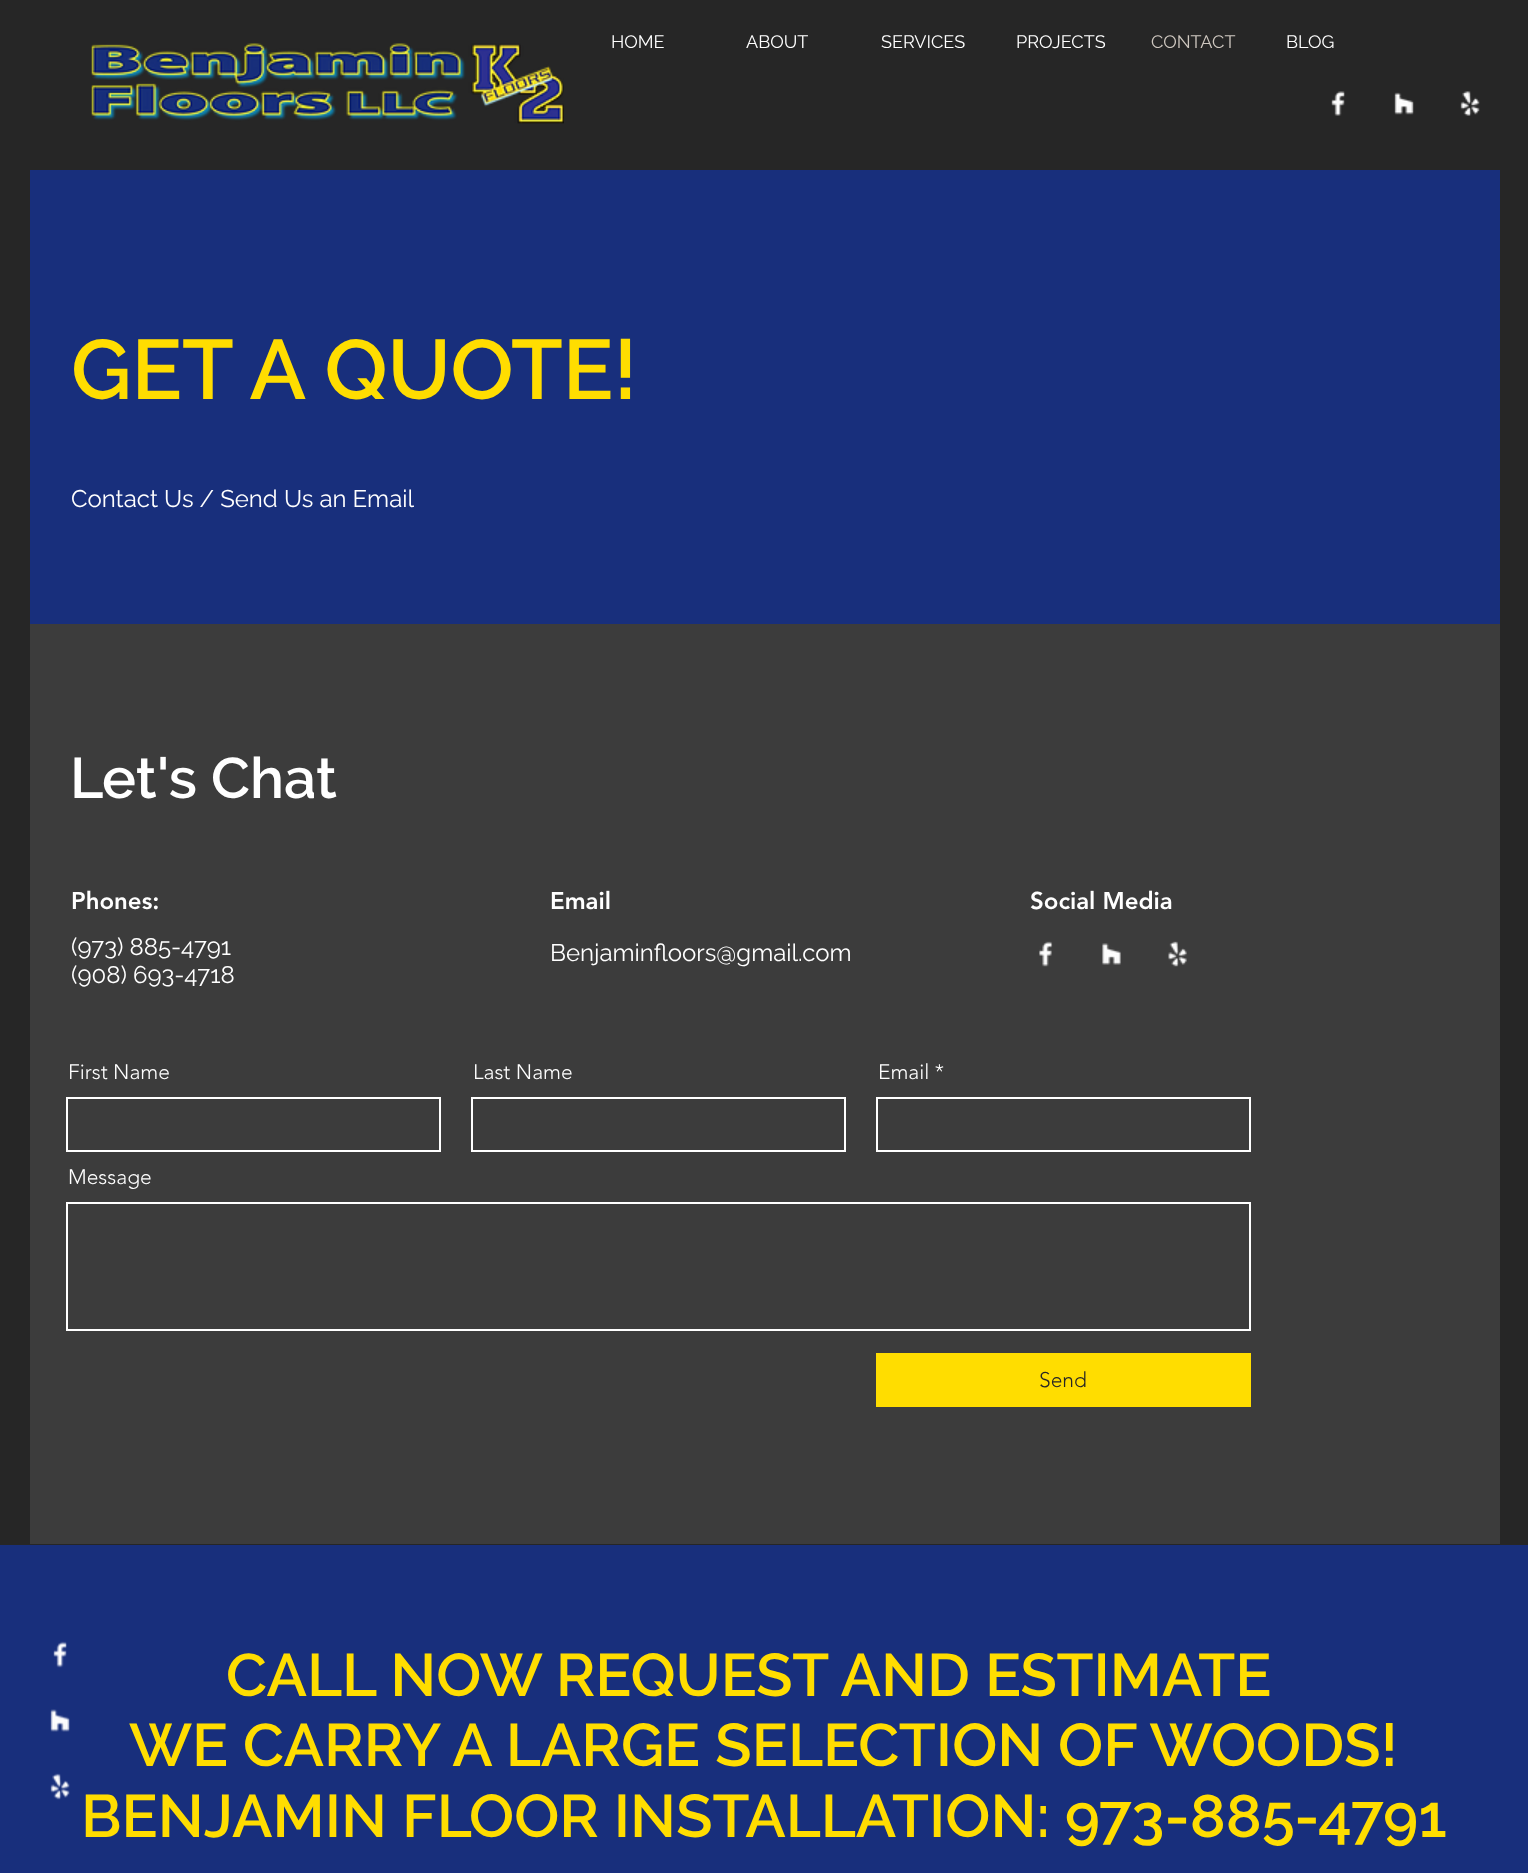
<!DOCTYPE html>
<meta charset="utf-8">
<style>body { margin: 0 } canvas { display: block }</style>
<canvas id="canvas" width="1528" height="1873"></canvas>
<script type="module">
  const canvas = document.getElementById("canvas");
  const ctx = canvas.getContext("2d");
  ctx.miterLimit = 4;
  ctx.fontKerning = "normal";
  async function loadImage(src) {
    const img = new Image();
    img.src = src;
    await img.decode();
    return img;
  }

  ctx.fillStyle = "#262626";
  ctx.fillRect(0, 0, 1528, 1873);
  ctx.drawImage(await loadImage("img1.png"), 91, 43, 473, 81);
  ctx.font = "18px Raleway";
  ctx.fillStyle = "#ffffff";
  ctx.fillText("HOME", 611, 48);
  ctx.fillText("ABOUT", 746, 48);
  ctx.fillText("SERVICES", 881, 48);
  ctx.fillText("PROJECTS", 1016, 48);
  ctx.fillStyle = "#cfc8c0";
  ctx.fillText("CONTACT", 1151, 48);
  ctx.fillStyle = "#ffffff";
  ctx.fillText("BLOG", 1286, 48);
  ctx.drawImage(await loadImage("img2.png"), 1331, 91, 14, 25);
  ctx.drawImage(await loadImage("img3.png"), 1394, 92, 20, 23);
  ctx.drawImage(await loadImage("img4.png"), 1460, 91, 20, 25);
  ctx.fillStyle = "#182f7c";
  ctx.fillRect(30, 170, 1470, 454);
  ctx.font = "600 84px Raleway";
  ctx.fillStyle = "#ffdd00";
  ctx.fillText("GET A QUOTE!", 71, 399);
  ctx.font = "24px Raleway";
  ctx.fillStyle = "#ffffff";
  ctx.fillText("Contact Us / Send Us an Email", 71, 507);
  ctx.fillStyle = "#3c3c3c";
  ctx.fillRect(30, 624, 1470, 920);
  ctx.font = "600 57px Raleway";
  ctx.fillStyle = "#ffffff";
  ctx.fillText("Let's Chat", 70, 798);
  ctx.font = "900 24px 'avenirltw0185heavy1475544'";
  ctx.fillText("Phones:", 71, 909);
  ctx.fillText("Email", 550, 909);
  ctx.fillText("Social Media", 1030, 909);
  ctx.font = "24px Raleway";
  ctx.fillText("(973) 885-4791", 71, 955);
  ctx.fillText("(908) 693-4718", 71, 983);
  ctx.fillText("Benjaminfloors@gmail.com", 550, 961);
  ctx.drawImage(await loadImage("img5.png"), 1039, 941, 14, 26);
  ctx.drawImage(await loadImage("img6.png"), 1102, 943, 19, 22);
  ctx.drawImage(await loadImage("img7.png"), 1168, 941, 19, 26);
  ctx.font = "300 21px 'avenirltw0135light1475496'";
  ctx.fillText("First Name", 68, 1079);
  ctx.strokeStyle = "#ffffff";
  ctx.lineWidth = 2;
  ctx.strokeRect(67, 1098, 373, 53);
  ctx.fillText("Last Name", 473, 1079);
  ctx.strokeRect(472, 1098, 373, 53);
  ctx.fillText("Email *", 878, 1079);
  ctx.strokeRect(877, 1098, 373, 53);
  ctx.fillText("Message", 68, 1184);
  ctx.strokeRect(67, 1203, 1183, 127);
  ctx.fillStyle = "#ffdd00";
  ctx.fillRect(876, 1353, 375, 54);
  ctx.fillStyle = "#262626";
  ctx.fillText("Send", 1039, 1387);
  ctx.fillStyle = "#182f7c";
  ctx.fillRect(0, 1545, 1528, 328);
  ctx.drawImage(await loadImage("img8.png"), 53, 1641, 14, 27);
  ctx.drawImage(await loadImage("img9.png"), 50, 1709, 20, 23);
  ctx.drawImage(await loadImage("img10.png"), 50, 1773, 20, 27);
  ctx.font = "600 60px Raleway";
  ctx.fillStyle = "#ffdd00";
  ctx.fillText("CALL NOW REQUEST AND ESTIMATE", 226, 1696);
  ctx.fillText("WE CARRY A LARGE SELECTION OF WOODS!", 129, 1766);
  ctx.fillText("BENJAMIN FLOOR INSTALLATION: 973-885-4791", 81, 1837);
</script>
